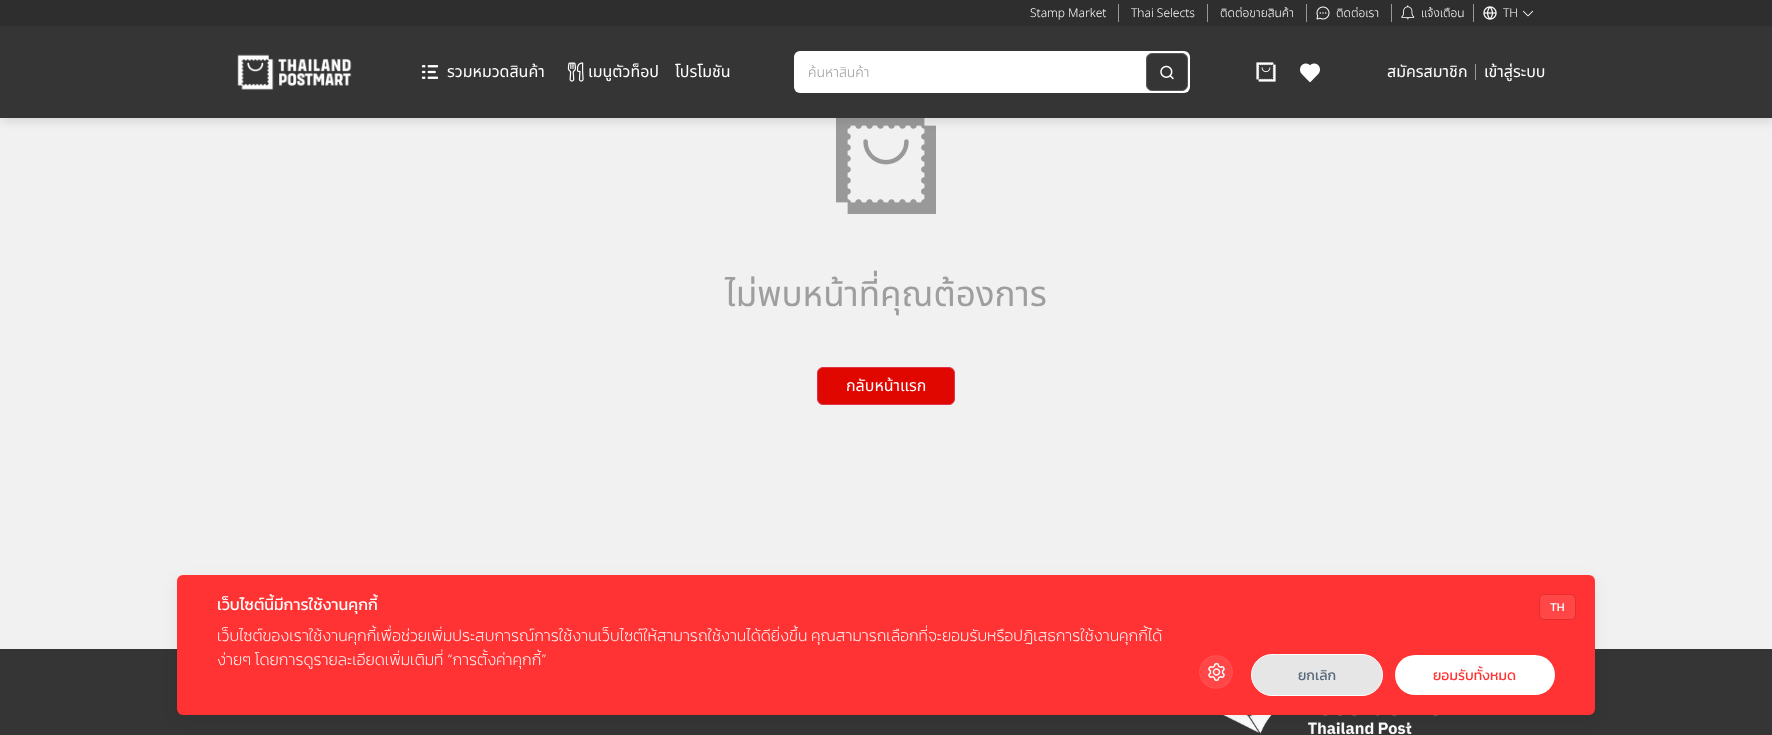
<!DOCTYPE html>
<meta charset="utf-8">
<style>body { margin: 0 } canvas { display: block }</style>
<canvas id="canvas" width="1772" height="735"></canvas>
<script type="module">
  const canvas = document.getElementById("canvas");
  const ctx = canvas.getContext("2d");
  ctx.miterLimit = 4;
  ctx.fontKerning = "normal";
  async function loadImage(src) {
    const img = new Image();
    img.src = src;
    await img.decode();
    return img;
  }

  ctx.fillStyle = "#f1f1f1";
  ctx.fillRect(0, 0, 1772, 735);
  ctx.drawImage(await loadImage("img11.png"), 836, 118, 100, 96);
  ctx.fillStyle = "rgba(73, 73, 73, 0.15)";
  ctx.filter = "blur(4px)";
  ctx.beginPath();
  ctx.rect(2, 4, 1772, 118);
  ctx.fill();
  ctx.filter = "none";
  ctx.fillStyle = "#353535";
  ctx.fillRect(0, 26, 1772, 92);
  ctx.fillStyle = "#2e2e2e";
  ctx.fillRect(0, 0, 1772, 26);
  ctx.font = "300 12px Noto Sans Thai";
  ctx.fillStyle = "#ffffff";
  ctx.fillText("Stamp Market", 1030, 17);
  ctx.fillStyle = "#979797";
  ctx.fillRect(1118, 4, 1, 18);
  ctx.fillStyle = "#ffffff";
  ctx.fillText("Thai Selects", 1131, 17);
  ctx.fillStyle = "#979797";
  ctx.fillRect(1207, 4, 1, 18);
  ctx.fillStyle = "#ffffff";
  ctx.fillText("ติดต่อขายสินค้า", 1220, 17);
  ctx.fillStyle = "#979797";
  ctx.fillRect(1306, 4, 1, 18);
  ctx.drawImage(await loadImage("img1.png"), 1316, 6, 14, 14);
  ctx.fillStyle = "#ffffff";
  ctx.fillText("ติดต่อเรา", 1336, 17);
  ctx.fillStyle = "#979797";
  ctx.fillRect(1391, 4, 1, 18);
  ctx.drawImage(await loadImage("img2.png"), 1401, 5, 14, 15);
  ctx.fillStyle = "#ffffff";
  ctx.fillText("แจ้งเตือน", 1421, 17);
  ctx.fillStyle = "#979797";
  ctx.fillRect(1473, 4, 1, 18);
  ctx.drawImage(await loadImage("img3.png"), 1483, 6, 14, 14);
  ctx.fillStyle = "#ffffff";
  ctx.fillText("TH", 1503, 17);
  ctx.drawImage(await loadImage("img4.png"), 1522, 10, 12, 7);
  ctx.drawImage(await loadImage("img5.png"), 237, 54, 115, 36);
  ctx.drawImage(await loadImage("img6.png"), 421, 65, 18, 14);
  ctx.font = "16px Noto Sans Thai";
  ctx.fillText("รวมหมวดสินค้า", 447, 77);
  ctx.drawImage(await loadImage("img7.png"), 567, 62, 17, 20);
  ctx.fillText("เมนูตัวท็อป", 588, 77);
  ctx.fillText("โปรโมชัน", 675, 77);
  ctx.beginPath();
  ctx.roundRect(794, 51, 396, 42, 6);
  ctx.fill();
  ctx.save();
  ctx.beginPath();
  ctx.rect(808, 62, 312, 21);
  ctx.clip();
  ctx.font = "300 14px Noto Sans Thai";
  ctx.fillStyle = "#999999";
  ctx.fillText("ค้นหาสินค้า", 808, 77);
  ctx.restore();
  ctx.fillStyle = "#353535";
  ctx.beginPath();
  ctx.roundRect(1146.5, 53.5, 41, 37, 5.5);
  ctx.fill();
  ctx.strokeStyle = "#5a5a5a";
  ctx.stroke();
  ctx.drawImage(await loadImage("img8.png"), 1160, 65, 14, 15);
  ctx.drawImage(await loadImage("img9.png"), 1256, 62, 20, 20);
  ctx.drawImage(await loadImage("img10.png"), 1300, 63, 20, 20);
  ctx.fillStyle = "#ffffff";
  ctx.fillText("สมัครสมาชิก", 1387, 77);
  ctx.fillStyle = "#9a9a9a";
  ctx.fillRect(1475, 64, 1, 16);
  ctx.fillStyle = "#ffffff";
  ctx.fillText("เข้าสู่ระบบ", 1484, 77);
  ctx.font = "35px Noto Sans Thai";
  ctx.fillStyle = "#9f9e9e";
  ctx.fillText("ไม่พบหน้าที่คุณต้องการ", 725, 306);
  ctx.fillStyle = "#e00700";
  ctx.beginPath();
  ctx.roundRect(817.5, 367.5, 137, 37, 5.5);
  ctx.fill();
  ctx.strokeStyle = "#dc3545";
  ctx.stroke();
  ctx.font = "16px Noto Sans Thai";
  ctx.fillStyle = "#ffffff";
  ctx.fillText("กลับหน้าแรก", 846, 391);
  ctx.fillStyle = "#353535";
  ctx.fillRect(0, 649, 1772, 86);
  ctx.drawImage(await loadImage("img12.png"), 1221, 715, 217, 19);
  ctx.fillStyle = "rgba(0, 0, 0, 0.06)";
  ctx.filter = "blur(8px)";
  ctx.beginPath();
  ctx.roundRect(177, 579, 1418, 140, 6);
  ctx.fill();
  ctx.filter = "none";
  ctx.fillStyle = "#ff3333";
  ctx.beginPath();
  ctx.roundRect(177, 575, 1418, 140, 6);
  ctx.fill();
  ctx.font = "16px Kanit";
  ctx.fillStyle = "#ffffff";
  ctx.fillText("เว็บไซต์นี้มีการใช้งานคุกกี้", 217, 610);
  ctx.font = "200 16px Kanit";
  ctx.fillText("เว็บไซต์ของเราใช้งานคุกกี้เพื่อช่วยเพิ่มประสบการณ์การใช้งานเว็บไซต์ให้สามารถใช้งานได้ดียิ่งขึ้น คุณสามารถเลือกที่จะยอมรับหรือปฏิเสธการใช้งานคุกกี้ได้", 217, 641);
  ctx.fillText("ง่ายๆ โดยการดูรายละเอียดเพิ่มเติมที่ “การตั้งค่าคุกกี้”", 217, 665);
  ctx.save();
  ctx.beginPath();
  ctx.moveTo(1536, 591);
  ctx.lineTo(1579, 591);
  ctx.lineTo(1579, 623);
  ctx.lineTo(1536, 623);
  ctx.closePath();
  ctx.moveTo(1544, 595);
  ctx.lineTo(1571, 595);
  ctx.bezierCurveTo(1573, 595, 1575, 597, 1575, 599);
  ctx.lineTo(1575, 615);
  ctx.bezierCurveTo(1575, 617, 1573, 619, 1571, 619);
  ctx.lineTo(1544, 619);
  ctx.bezierCurveTo(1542, 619, 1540, 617, 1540, 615);
  ctx.lineTo(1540, 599);
  ctx.bezierCurveTo(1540, 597, 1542, 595, 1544, 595);
  ctx.closePath();
  ctx.clip("evenodd");
  ctx.fillStyle = "rgba(0, 0, 0, 0.1)";
  ctx.filter = "blur(0.5px)";
  ctx.beginPath();
  ctx.roundRect(1539, 594, 37, 26, 5);
  ctx.fill();
  ctx.filter = "none";
  ctx.restore();
  ctx.fillStyle = "rgba(255, 255, 255, 0.1)";
  ctx.beginPath();
  ctx.roundRect(1540, 595, 35, 24, 4);
  ctx.fill();
  ctx.font = "12px Kanit";
  ctx.fillStyle = "#ffffff";
  ctx.fillText("TH", 1550, 611);
  ctx.drawImage(await loadImage("img13.png"), 1199, 655, 34, 34);
  ctx.fillStyle = "#e6e6e6";
  ctx.beginPath();
  ctx.roundRect(1251.5, 654.5, 131, 41, 20.5);
  ctx.fill();
  ctx.strokeStyle = "#ffffff";
  ctx.stroke();
  ctx.font = "14px Kanit";
  ctx.fillStyle = "#57697b";
  ctx.fillText("ยกเลิก", 1298, 680);
  ctx.fillStyle = "#ffffff";
  ctx.beginPath();
  ctx.roundRect(1395, 655, 160, 40, 20);
  ctx.fill();
  ctx.fillStyle = "#ff3333";
  ctx.fillText("ยอมรับทั้งหมด", 1433, 680);
</script>
